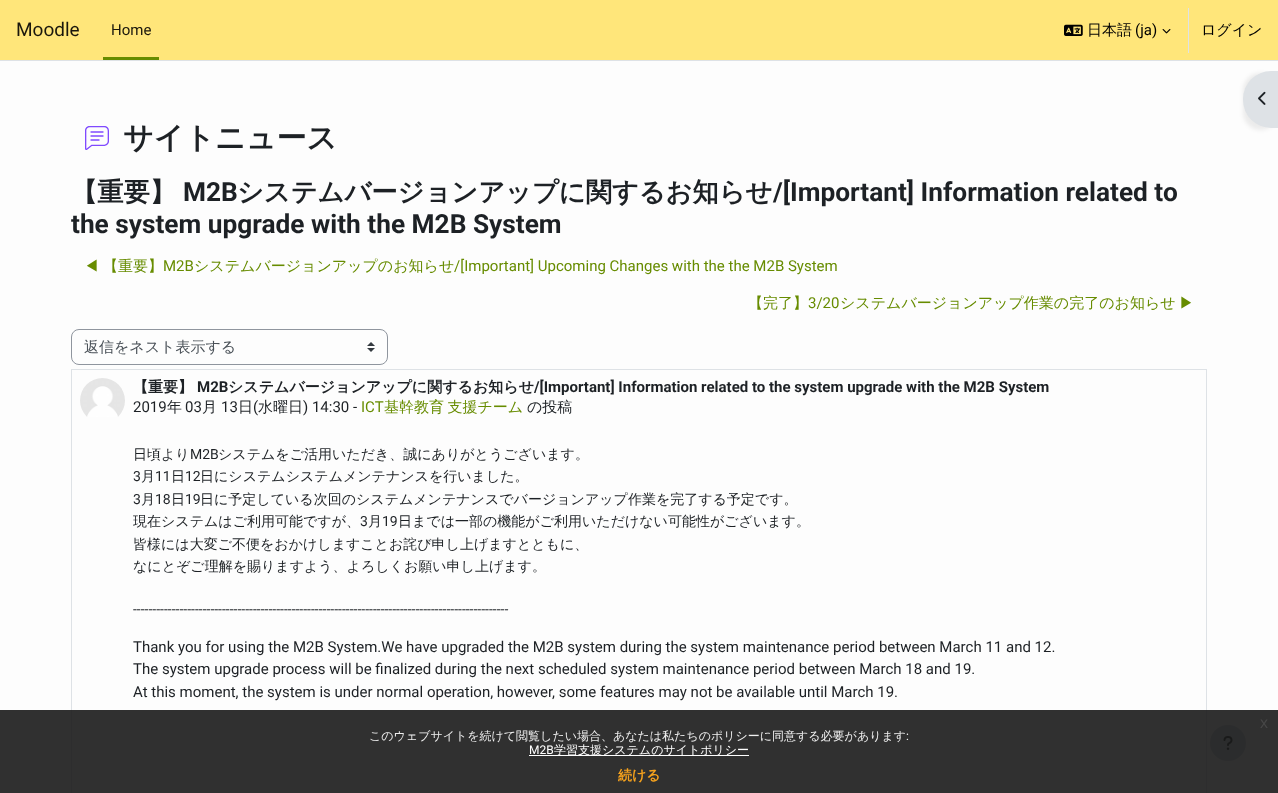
<!DOCTYPE html>
<meta charset="utf-8">
<style>body { margin: 0 } canvas { display: block }</style>
<canvas id="canvas" width="1278" height="793"></canvas>
<script type="module">
  const canvas = document.getElementById("canvas");
  const ctx = canvas.getContext("2d");
  ctx.miterLimit = 4;
  ctx.fontKerning = "normal";
  async function loadImage(src) {
    const img = new Image();
    img.src = src;
    await img.decode();
    return img;
  }

  ctx.fillStyle = "#fdfdfd";
  ctx.fillRect(0, 0, 1278, 793);
  ctx.fillStyle = "#ffe67a";
  ctx.fillRect(0, 0, 1278, 60);
  ctx.fillStyle = "#dee2e6";
  ctx.fillRect(0, 60, 1278, 1);
  ctx.font = "19px Roboto";
  ctx.fillStyle = "#1a170c";
  ctx.fillText("Moodle", 16, 36);
  ctx.fillStyle = "#678c00";
  ctx.fillRect(103, 57, 56, 3);
  ctx.font = "15px Roboto";
  ctx.fillStyle = "#1a170c";
  ctx.fillText("Home", 111, 35);
  ctx.drawImage(await loadImage("img1.png"), 1064, 24, 19, 12);
  ctx.font = "500 15px WenQuanYi Zen Hei";
  ctx.fillStyle = "#000000";
  ctx.fillText("日本語", 1087, 35);
  ctx.font = "15px Roboto";
  ctx.fillText("(ja)", 1135, 35);
  ctx.drawImage(await loadImage("img2.png"), 1162, 29, 9, 5);
  ctx.fillStyle = "#dee2e6";
  ctx.fillRect(1188, 8, 1, 45);
  ctx.font = "500 15px WenQuanYi Zen Hei";
  ctx.fillStyle = "#000000";
  ctx.fillText("ログイン", 1201, 35);
  ctx.drawImage(await loadImage("img3.png"), 85, 126, 24, 24);
  ctx.font = "bold 30px WenQuanYi Zen Hei";
  ctx.fillStyle = "#1d2125";
  ctx.fillText("サイトニュース", 123, 148);
  ctx.fillStyle = "rgba(0, 0, 0, 0.07)";
  ctx.filter = "blur(2px)";
  ctx.beginPath();
  ctx.roundRect(1243, 73, 35, 57, 28);
  ctx.fill();
  ctx.filter = "none";
  ctx.fillStyle = "#dee2e6";
  ctx.beginPath();
  ctx.roundRect(1243, 71, 35, 57, [28, 0, 0, 28]);
  ctx.fill();
  ctx.drawImage(await loadImage("img4.png"), 1258, 91, 8, 14);
  ctx.font = "bold 26.25px WenQuanYi Zen Hei";
  ctx.fillStyle = "#1d2125";
  ctx.fillText("【重要】", 71, 201);
  ctx.font = "bold 26.25px Roboto";
  ctx.fillText("M2B", 183, 201);
  ctx.font = "bold 26.25px WenQuanYi Zen Hei";
  ctx.fillText("システムバージョンアップに関するお知らせ", 237, 201);
  ctx.font = "bold 26.25px Roboto";
  ctx.fillText("/[Important] Information related to", 773, 201);
  ctx.fillText("the system upgrade with the M2B System", 71, 233);
  ctx.font = "500 15px WenQuanYi Zen Hei";
  ctx.fillStyle = "#678c00";
  ctx.fillText("◀︎", 84, 271);
  ctx.fillText("【重要】", 103, 271);
  ctx.font = "15px Roboto";
  ctx.fillText("M2B", 163, 271);
  ctx.font = "500 15px WenQuanYi Zen Hei";
  ctx.fillText("システムバージョンアップのお知らせ", 194, 271);
  ctx.font = "15px Roboto";
  ctx.fillText("/[Important] Upcoming Changes with the the M2B System", 454, 271);
  ctx.font = "500 15px WenQuanYi Zen Hei";
  ctx.fillText("【完了】", 748, 308);
  ctx.font = "15px Roboto";
  ctx.fillText("3/20", 808, 308);
  ctx.wordSpacing = "-1px";
  ctx.font = "500 15px WenQuanYi Zen Hei";
  ctx.fillText("システムバージョンアップ作業の完了のお知らせ ▶︎", 840, 308);
  ctx.drawImage(await loadImage("img5.png"), 367, 342, 8, 10);
  ctx.beginPath();
  ctx.roundRect(71.5, 329.5, 316, 35, 7.5);
  ctx.strokeStyle = "#8f959e";
  ctx.stroke();
  ctx.wordSpacing = "0px";
  ctx.fillStyle = "#495057";
  ctx.fillText("返信をネスト表示する", 84, 352);
  ctx.strokeStyle = "#dee2e6";
  ctx.strokeRect(71.5, 369.5, 1135, 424);
  ctx.drawImage(await loadImage("img6.png"), 80, 378, 45, 39);
  ctx.font = "bold 15px WenQuanYi Zen Hei";
  ctx.fillStyle = "#1d2125";
  ctx.fillText("【重要】", 133, 392);
  ctx.font = "bold 15px Roboto";
  ctx.fillText("M2B", 197, 392);
  ctx.font = "bold 15px WenQuanYi Zen Hei";
  ctx.fillText("システムバージョンアップに関するお知らせ", 228, 392);
  ctx.font = "bold 15px Roboto";
  ctx.fillText("/[Important] Information related to the system upgrade with the M2B System", 534, 392);
  ctx.font = "15px Roboto";
  ctx.fillText("2019", 133, 412);
  ctx.font = "500 15px WenQuanYi Zen Hei";
  ctx.fillText("年", 167, 412);
  ctx.font = "15px Roboto";
  ctx.fillText("03", 185, 412);
  ctx.font = "500 15px WenQuanYi Zen Hei";
  ctx.fillText("月", 202, 412);
  ctx.font = "15px Roboto";
  ctx.fillText("13", 221, 412);
  ctx.font = "500 15px WenQuanYi Zen Hei";
  ctx.fillText("日", 238, 412);
  ctx.font = "15px Roboto";
  ctx.fillText("(", 253, 412);
  ctx.font = "500 15px WenQuanYi Zen Hei";
  ctx.fillText("水曜日", 258, 412);
  ctx.font = "15px Roboto";
  ctx.fillText(") 14:30 -", 303, 412);
  ctx.fillStyle = "#678c00";
  ctx.fillText("ICT", 361, 412);
  ctx.wordSpacing = "-1px";
  ctx.font = "500 15px WenQuanYi Zen Hei";
  ctx.fillText("基幹教育 支援チーム", 384, 412);
  ctx.wordSpacing = "0px";
  ctx.fillStyle = "#1d2125";
  ctx.fillText("の投稿", 527, 412);
  ctx.font = "500 14px WenQuanYi Zen Hei";
  ctx.fillText("日頃より", 133, 459);
  ctx.font = "14px Roboto";
  ctx.fillText("M2B", 190, 459);
  ctx.font = "500 14px WenQuanYi Zen Hei";
  ctx.fillText("システムをご活用いただき、誠にありがとうございます。", 218, 459);
  ctx.font = "14px Roboto";
  ctx.fillText("3", 133, 481);
  ctx.font = "500 14px WenQuanYi Zen Hei";
  ctx.fillText("月", 141, 481);
  ctx.font = "14px Roboto";
  ctx.fillText("11", 155, 481);
  ctx.font = "500 14px WenQuanYi Zen Hei";
  ctx.fillText("日", 171, 481);
  ctx.font = "14px Roboto";
  ctx.fillText("12", 185, 481);
  ctx.font = "500 14px WenQuanYi Zen Hei";
  ctx.fillText("日にシステムシステムメンテナンスを行いました。", 200, 481);
  ctx.font = "14px Roboto";
  ctx.fillText("3", 133, 504);
  ctx.font = "500 14px WenQuanYi Zen Hei";
  ctx.fillText("月", 141, 504);
  ctx.font = "14px Roboto";
  ctx.fillText("18", 155, 504);
  ctx.font = "500 14px WenQuanYi Zen Hei";
  ctx.fillText("日", 171, 504);
  ctx.font = "14px Roboto";
  ctx.fillText("19", 185, 504);
  ctx.font = "500 14px WenQuanYi Zen Hei";
  ctx.fillText("日に予定している次回のシステムメンテナンスでバージョンアップ作業を完了する予定です。", 200, 504);
  ctx.fillText("現在システムはご利用可能ですが、", 133, 526);
  ctx.font = "14px Roboto";
  ctx.fillText("3", 360, 526);
  ctx.font = "500 14px WenQuanYi Zen Hei";
  ctx.fillText("月", 368, 526);
  ctx.font = "14px Roboto";
  ctx.fillText("19", 382, 526);
  ctx.font = "500 14px WenQuanYi Zen Hei";
  ctx.fillText("日までは一部の機能がご利用いただけない可能性がございます。", 398, 526);
  ctx.fillText("皆様には大変ご不便をおかけしますことお詫び申し上げますとともに、", 133, 549);
  ctx.fillText("なにとぞご理解を賜りますよう、よろしくお願い申し上げます。", 133, 571);
  ctx.font = "14px Roboto";
  ctx.fillText("-------------------------------------------------------------------------------------------------", 133, 614);
  ctx.font = "15px Roboto";
  ctx.fillText("Thank you for using the M2B System.We have upgraded the M2B system during the system maintenance period between March 11 and 12.", 133, 652);
  ctx.fillText("The system upgrade process will be finalized during the next scheduled system maintenance period between March 18 and 19.", 133, 674);
  ctx.fillText("At this moment, the system is under normal operation, however, some features may not be available until March 19.", 133, 697);
  ctx.fillStyle = "#ced4da";
  ctx.beginPath();
  ctx.arc(1228, 743, 18, 0, Math.PI * 2);
  ctx.fill();
  ctx.drawImage(await loadImage("img7.png"), 1223, 736, 10, 14);
  ctx.fillStyle = "rgba(25, 25, 25, 0.9)";
  ctx.fillRect(0, 710, 1278, 83);
  ctx.font = "16px Liberation Sans";
  ctx.fillStyle = "#474747";
  ctx.fillText("x", 1260, 728);
  ctx.font = "500 12px WenQuanYi Zen Hei";
  ctx.fillStyle = "#efefef";
  ctx.fillText("このウェブサイトを続けて閲覧したい場合、あなたは私たちのポリシーに同意する必要があります", 369, 740);
  ctx.font = "12px Roboto";
  ctx.fillText(":", 906, 740);
  ctx.fillStyle = "#ffffff";
  ctx.fillText("M2B", 529, 754);
  ctx.fillRect(529, 755, 220, 1);
  ctx.font = "500 12px WenQuanYi Zen Hei";
  ctx.fillText("学習支援システムのサイトポリシー", 554, 754);
  ctx.font = "bold 14px WenQuanYi Zen Hei";
  ctx.fillStyle = "#f6a21d";
  ctx.fillText("続ける", 618, 780);
</script>
